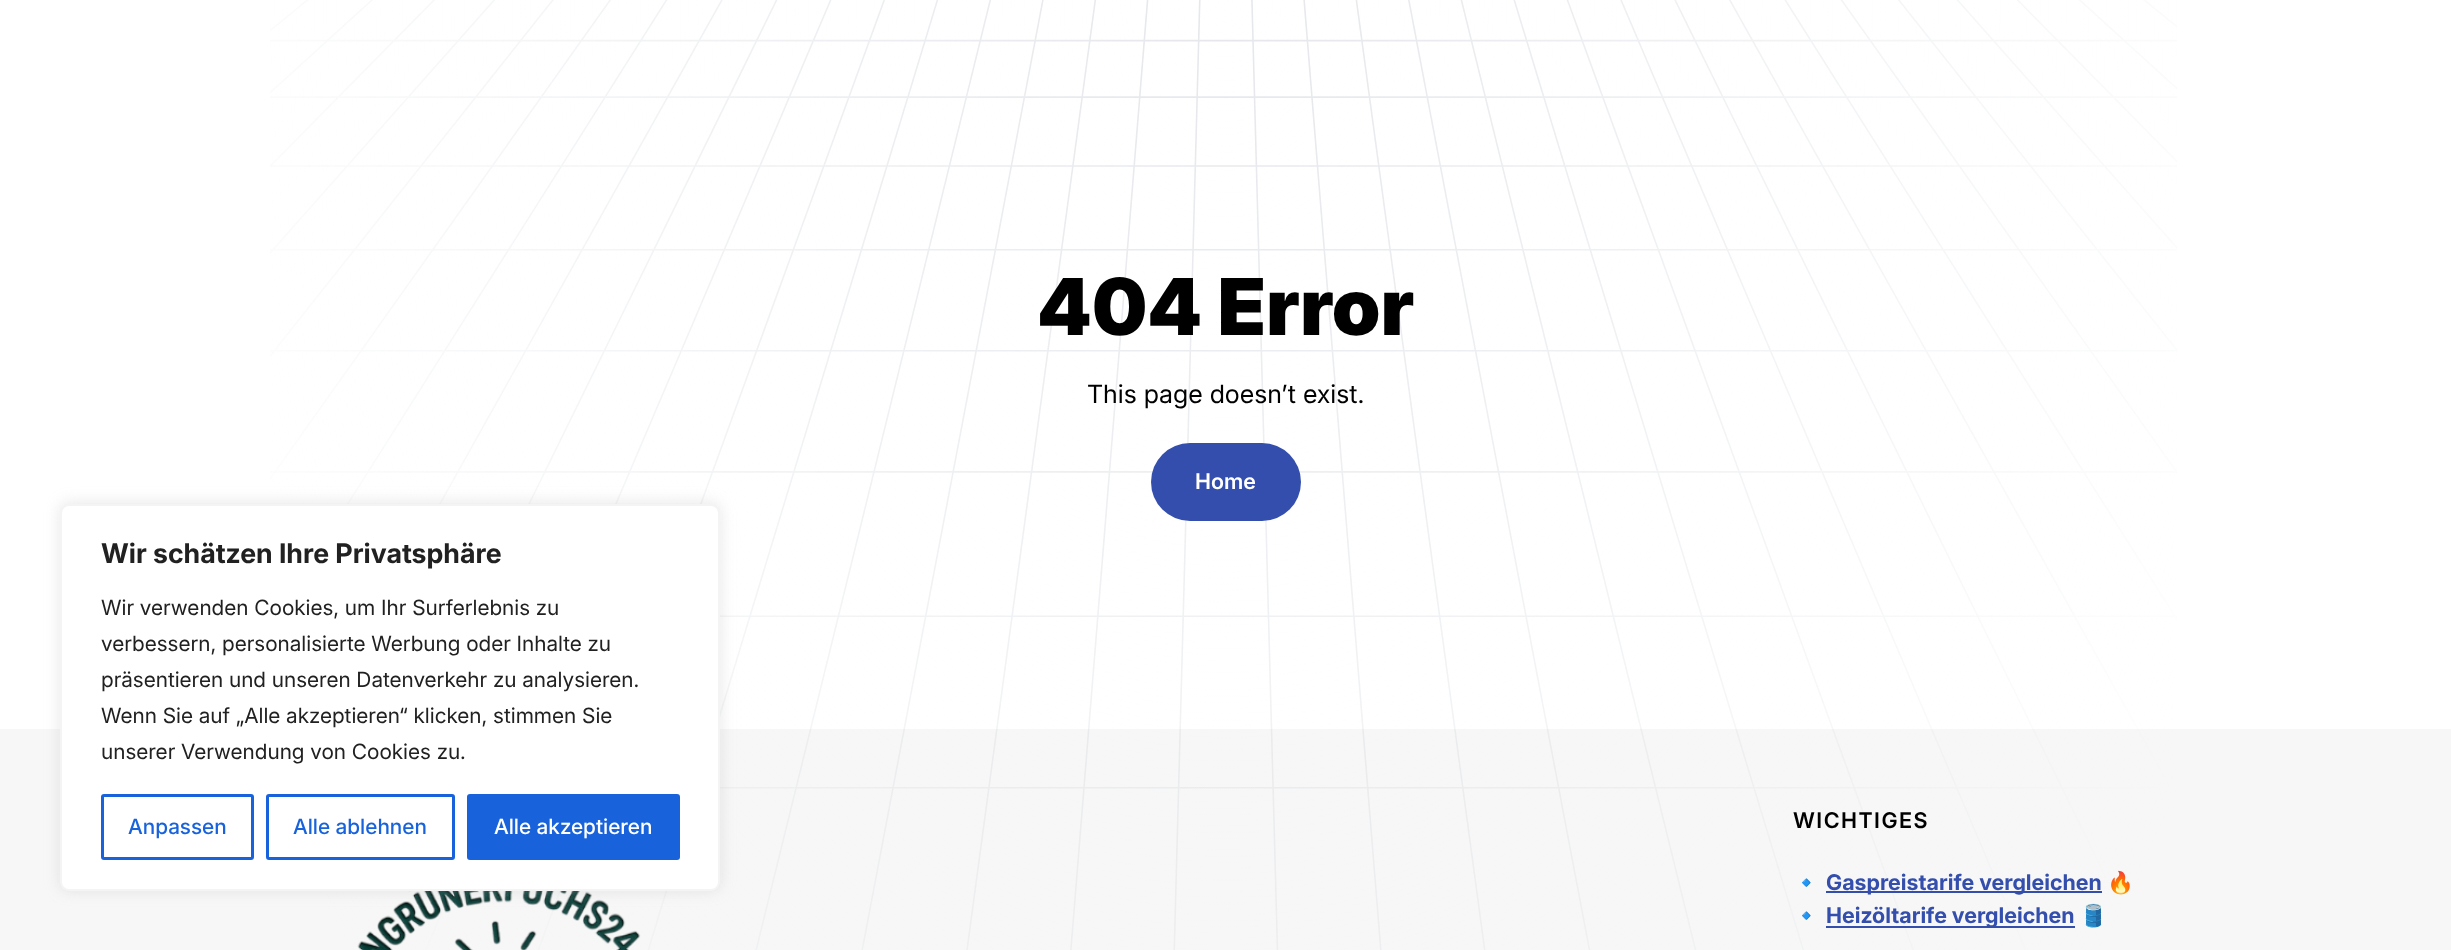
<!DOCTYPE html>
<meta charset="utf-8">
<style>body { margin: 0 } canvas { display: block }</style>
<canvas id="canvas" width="2451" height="950"></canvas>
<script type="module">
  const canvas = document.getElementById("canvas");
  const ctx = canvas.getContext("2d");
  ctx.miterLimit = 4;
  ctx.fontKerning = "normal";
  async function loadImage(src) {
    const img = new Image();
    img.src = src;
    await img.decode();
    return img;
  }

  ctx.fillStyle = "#ffffff";
  ctx.fillRect(0, 0, 2451, 950);
  ctx.drawImage(await loadImage("img1.png"), 270, 0, 1907, 950);
  ctx.fillStyle = "rgba(0, 0, 0, 0.03)";
  ctx.fillRect(0, 729, 2451, 221);
  ctx.drawImage(await loadImage("img2.png"), 357, 891, 284, 59);
  ctx.fillStyle = "rgba(172, 171, 171, 0.3)";
  ctx.filter = "blur(7.5px)";
  ctx.beginPath();
  ctx.roundRect(60, 503, 660, 387, 9);
  ctx.fill();
  ctx.filter = "none";
  ctx.fillStyle = "#ffffff";
  ctx.beginPath();
  ctx.roundRect(61, 505, 658, 385, 8);
  ctx.fill();
  ctx.strokeStyle = "#f4f4f4";
  ctx.lineWidth = 2;
  ctx.stroke();
  ctx.font = "bold 27px Inter";
  ctx.fillStyle = "#212121";
  ctx.fillText("Wir schätzen Ihre Privatsphäre", 101, 563);
  ctx.font = "21px Inter";
  ctx.fillText("Wir verwenden Cookies, um Ihr Surferlebnis zu", 101, 615);
  ctx.fillText("verbessern, personalisierte Werbung oder Inhalte zu", 101, 651);
  ctx.fillText("präsentieren und unseren Datenverkehr zu analysieren.", 101, 687);
  ctx.fillText("Wenn Sie auf „Alle akzeptieren“ klicken, stimmen Sie", 101, 723);
  ctx.fillText("unserer Verwendung von Cookies zu.", 101, 759);
  ctx.beginPath();
  ctx.roundRect(102.5, 795.5, 150, 63, 1.5);
  ctx.strokeStyle = "#1863dc";
  ctx.lineWidth = 3;
  ctx.stroke();
  ctx.font = "500 21px Inter";
  ctx.fillStyle = "#1863dc";
  ctx.fillText("Anpassen", 128, 834);
  ctx.beginPath();
  ctx.roundRect(267.5, 795.5, 186, 63, 1.5);
  ctx.stroke();
  ctx.fillText("Alle ablehnen", 293, 834);
  ctx.beginPath();
  ctx.roundRect(468.5, 795.5, 210, 63, 1.5);
  ctx.fill();
  ctx.stroke();
  ctx.fillStyle = "#ffffff";
  ctx.fillText("Alle akzeptieren", 494, 834);
  ctx.font = "900 78.5px Inter";
  ctx.fillStyle = "#000000";
  ctx.fillText("404 Error", 1037, 335);
  ctx.font = "25.25px Inter";
  ctx.fillText("This page doesn’t exist.", 1087, 403);
  ctx.fillStyle = "#334eac";
  ctx.beginPath();
  ctx.roundRect(1151, 443, 150, 78, 39);
  ctx.fill();
  ctx.font = "600 21.6px Inter";
  ctx.fillStyle = "#ffffff";
  ctx.fillText("Home", 1195, 489);
  ctx.letterSpacing = "1.5px";
  ctx.fillStyle = "#000000";
  ctx.fillText("WICHTIGES", 1793, 828);
  ctx.letterSpacing = "0px";
  ctx.font = "21.6px Noto Color Emoji";
  ctx.fillText("🔹", 1793, 890);
  ctx.fillStyle = "#334eac";
  ctx.fillRect(1826, 891, 276, 2);
  ctx.font = "bold 21.6px Inter";
  ctx.fillText("Gaspreistarife vergleichen", 1826, 890);
  ctx.font = "21.6px Noto Color Emoji";
  ctx.fillStyle = "#000000";
  ctx.fillText("🔥", 2107, 890);
  ctx.fillText("🔹", 1793, 923);
  ctx.fillStyle = "#334eac";
  ctx.fillRect(1826, 926, 249, 2);
  ctx.font = "bold 21.6px Inter";
  ctx.fillText("Heizöltarife vergleichen", 1826, 923);
  ctx.font = "21.6px Noto Color Emoji";
  ctx.fillStyle = "#000000";
  ctx.fillText("🛢️", 2080, 923);
</script>
